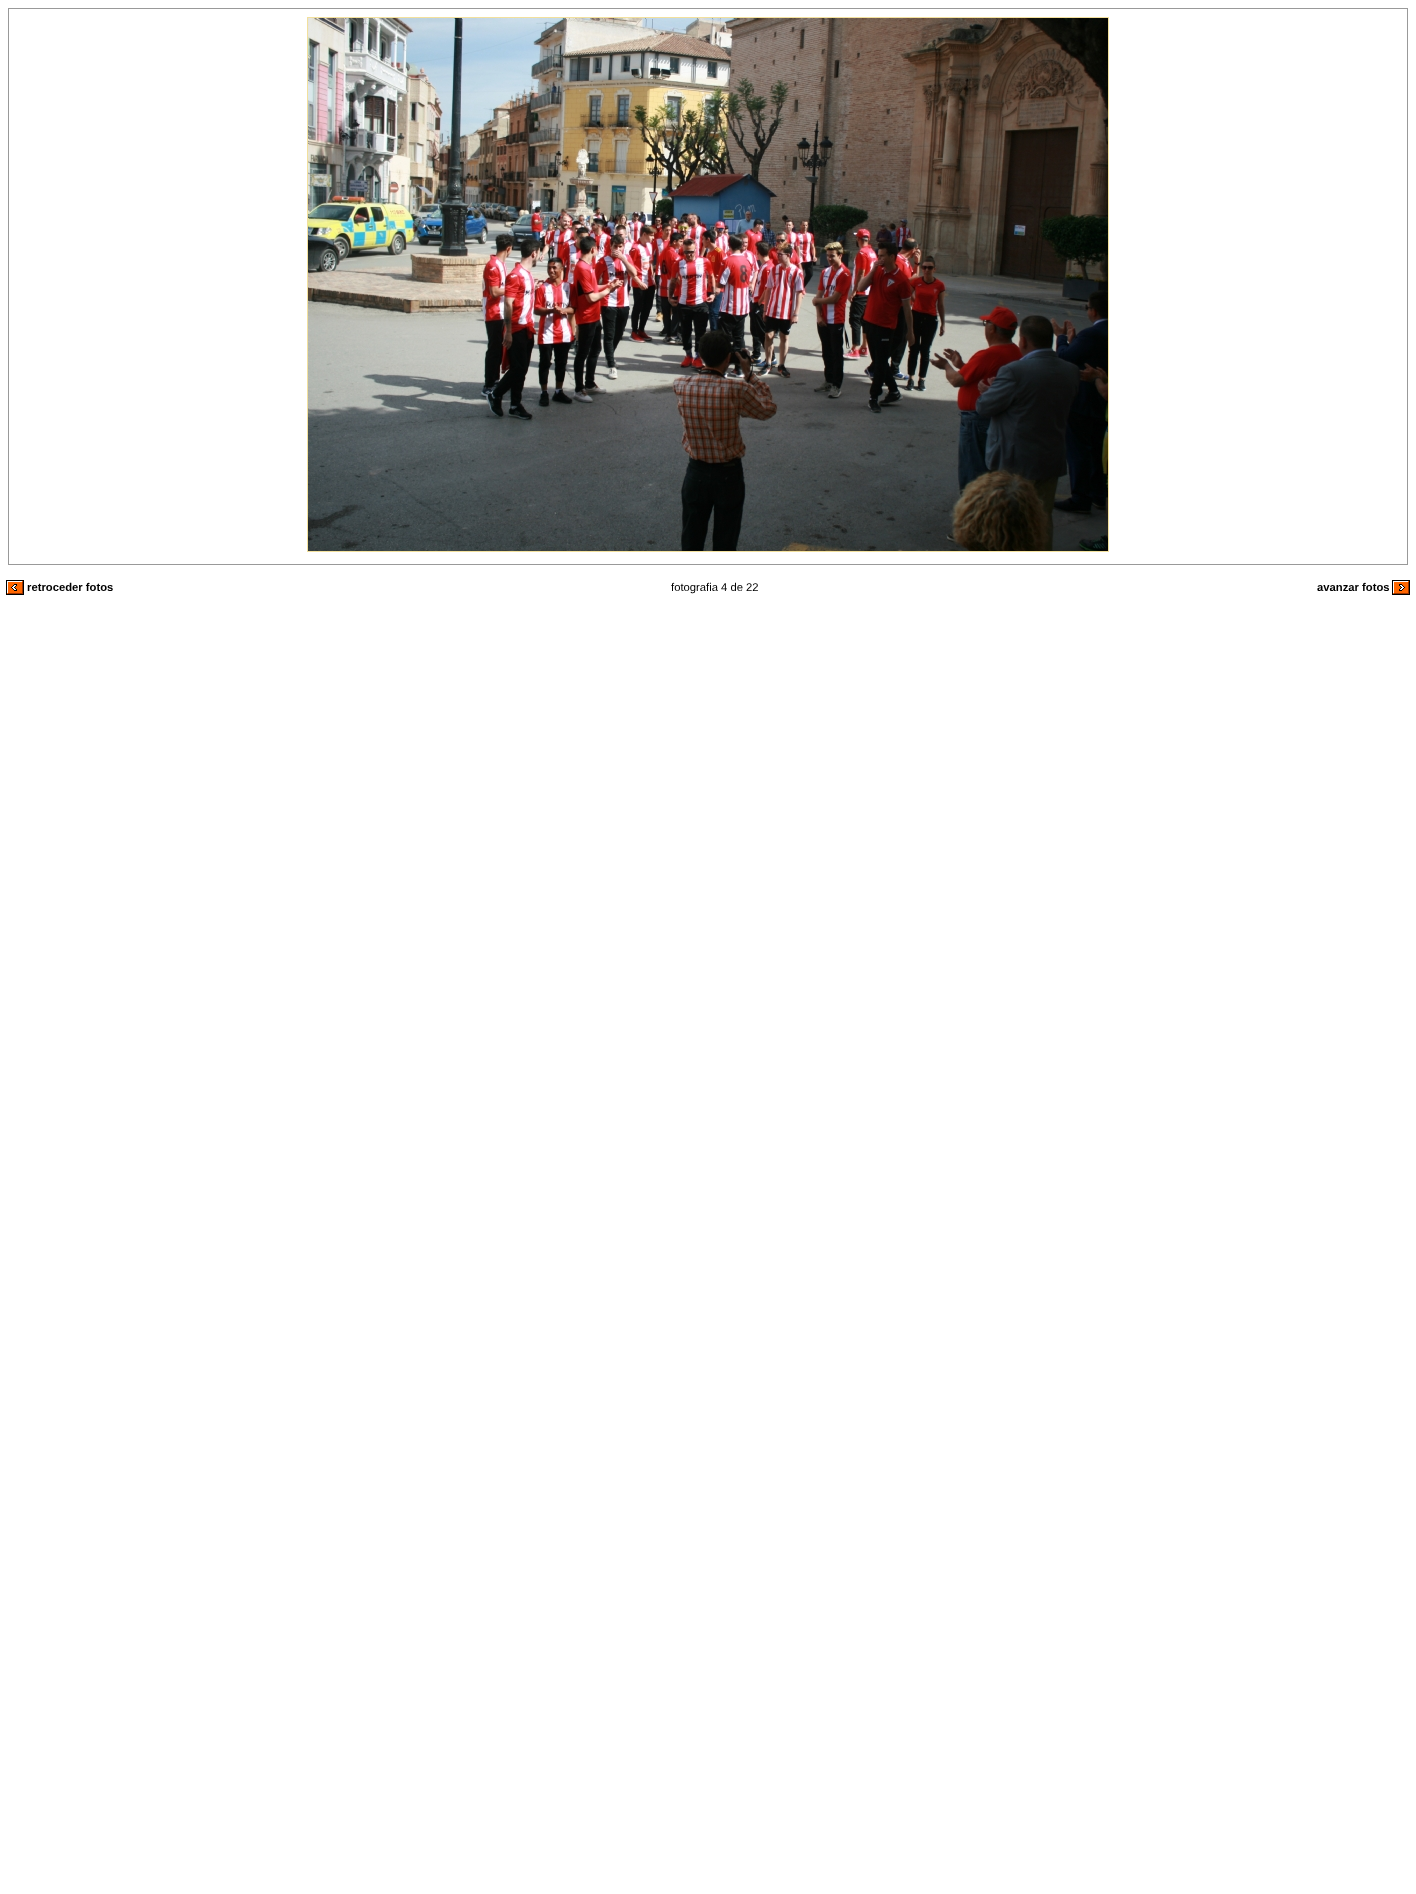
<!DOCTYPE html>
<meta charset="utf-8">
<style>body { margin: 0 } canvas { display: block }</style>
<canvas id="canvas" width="1416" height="1894"></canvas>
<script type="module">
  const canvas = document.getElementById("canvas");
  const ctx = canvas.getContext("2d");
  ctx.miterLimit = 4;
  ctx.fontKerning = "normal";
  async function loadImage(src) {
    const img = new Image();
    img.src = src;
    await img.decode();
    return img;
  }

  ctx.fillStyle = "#ffffff";
  ctx.fillRect(0, 0, 1416, 1894);
  ctx.strokeStyle = "#999999";
  ctx.strokeRect(8.5, 8.5, 1399, 556);
  ctx.strokeStyle = "#f2e09d";
  ctx.strokeRect(307.5, 17.5, 801, 534);
  ctx.drawImage(await loadImage("img1.png"), 308, 18, 800, 533);
  ctx.drawImage(await loadImage("img2.png"), 6, 580, 18, 15);
  ctx.font = "bold 11.25px Liberation Sans";
  ctx.fillStyle = "#000000";
  ctx.fillText("retroceder fotos", 27, 591);
  ctx.font = "11.25px Liberation Sans";
  ctx.fillText("fotografia 4 de 22", 671, 591);
  ctx.font = "bold 11.25px Liberation Sans";
  ctx.fillText("avanzar fotos", 1317, 591);
  ctx.drawImage(await loadImage("img3.png"), 1392, 580, 18, 15);
</script>
